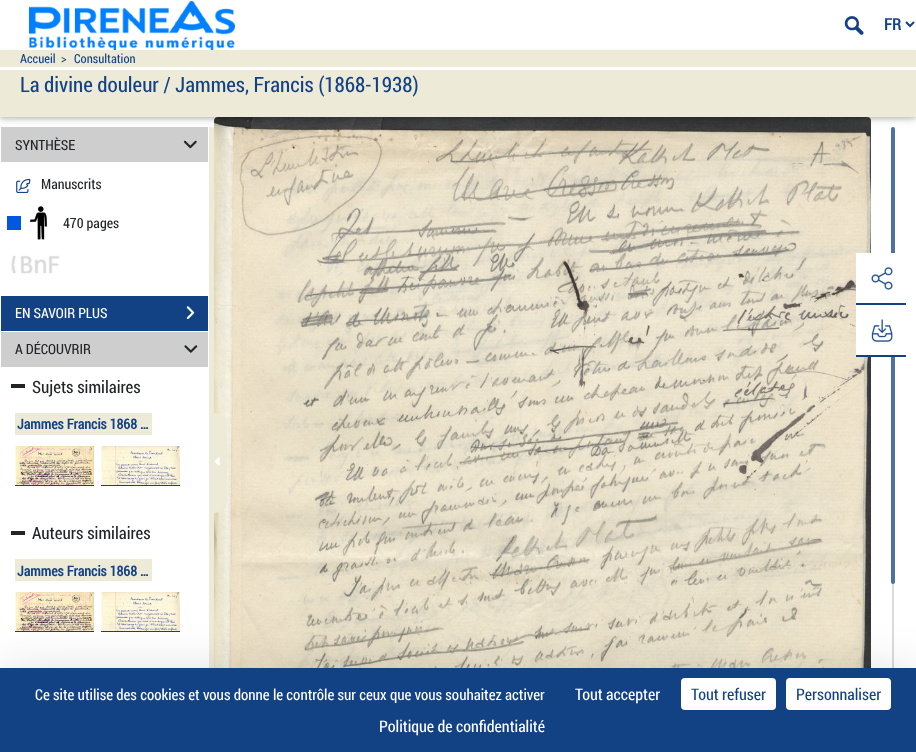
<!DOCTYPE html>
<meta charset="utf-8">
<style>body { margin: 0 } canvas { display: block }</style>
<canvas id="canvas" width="916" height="752"></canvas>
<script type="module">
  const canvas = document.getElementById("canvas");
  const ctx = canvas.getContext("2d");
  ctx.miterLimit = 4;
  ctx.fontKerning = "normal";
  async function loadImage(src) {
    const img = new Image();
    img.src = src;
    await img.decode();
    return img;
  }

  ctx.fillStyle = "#ffffff";
  ctx.fillRect(0, 0, 916, 752);
  ctx.drawImage(await loadImage("img12.png"), 214, 117, 657, 551);
  ctx.fillStyle = "#dadada";
  ctx.beginPath();
  ctx.roundRect(892, 127, 2, 615, 1);
  ctx.fill();
  ctx.fillStyle = "#4e71a3";
  ctx.beginPath();
  ctx.roundRect(891, 127, 4, 457, 2);
  ctx.fill();
  ctx.save();
  ctx.beginPath();
  ctx.rect(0, 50, 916, 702);
  ctx.clip();
  ctx.fillStyle = "rgba(0, 0, 0, 0.12)";
  ctx.filter = "blur(5px)";
  ctx.beginPath();
  ctx.rect(0, 52, 916, 67);
  ctx.fill();
  ctx.filter = "none";
  ctx.restore();
  ctx.fillStyle = "rgba(0, 0, 0, 0.16)";
  ctx.filter = "blur(2px)";
  ctx.beginPath();
  ctx.rect(0, 52, 916, 67);
  ctx.fill();
  ctx.filter = "none";
  ctx.drawImage(await loadImage("img1.png"), 29, 1, 206, 49);
  ctx.drawImage(await loadImage("img2.png"), 844, 16, 20, 19);
  ctx.beginPath();
  ctx.moveTo(906, 22);
  ctx.lineTo(910, 26);
  ctx.lineTo(914, 22);
  ctx.strokeStyle = "#134284";
  ctx.lineWidth = 2;
  ctx.stroke();
  ctx.font = "bold 16px Roboto Condensed";
  ctx.fillStyle = "#134284";
  ctx.fillText("FR", 884, 30);
  ctx.fillStyle = "#edead8";
  ctx.fillRect(0, 50, 916, 67);
  ctx.fillStyle = "#ffffff";
  ctx.fillRect(0, 67, 916, 3);
  ctx.font = "12.5px Roboto Condensed";
  ctx.fillStyle = "#134284";
  ctx.fillText("Accueil", 20, 63);
  ctx.fillText(">", 61, 63);
  ctx.fillText("Consultation", 74, 63);
  ctx.font = "21px Roboto Condensed";
  ctx.fillText("La divine douleur / Jammes, Francis (1868-1938)", 20, 92);
  ctx.fillStyle = "#edead8";
  ctx.fillRect(209, 127, 5, 541);
  ctx.fillStyle = "#cecece";
  ctx.fillRect(1, 127, 207, 35);
  ctx.font = "14px Roboto Condensed";
  ctx.fillStyle = "#212529";
  ctx.fillText("SYNTHÈSE", 15, 150);
  ctx.drawImage(await loadImage("img3.png"), 183, 140, 14, 9);
  ctx.drawImage(await loadImage("img4.png"), 16, 178, 15, 15);
  ctx.fillText("Manuscrits", 41, 189);
  ctx.fillStyle = "#0057e2";
  ctx.fillRect(7, 216, 14, 14);
  ctx.drawImage(await loadImage("img5.png"), 30, 206, 17, 34);
  ctx.fillStyle = "#212529";
  ctx.fillText("470 pages", 63, 228);
  ctx.drawImage(await loadImage("img6.png"), 11, 255, 49, 19);
  ctx.fillStyle = "#134284";
  ctx.fillRect(1, 296, 207, 35);
  ctx.fillStyle = "#ffffff";
  ctx.fillText("EN SAVOIR PLUS", 15, 318);
  ctx.drawImage(await loadImage("img7.png"), 186, 306, 9, 14);
  ctx.fillStyle = "#cecece";
  ctx.fillRect(1, 332, 207, 35);
  ctx.fillStyle = "#212529";
  ctx.fillText("A DÉCOUVRIR", 15, 354);
  ctx.drawImage(await loadImage("img8.png"), 184, 345, 14, 8);
  ctx.font = "17px Roboto Condensed";
  ctx.fillText("Sujets similaires", 32, 393);
  ctx.fillRect(11, 384, 14, 4);
  ctx.fillStyle = "#edead8";
  ctx.fillRect(15, 413, 137, 22);
  ctx.font = "bold 14px Roboto Condensed";
  ctx.fillStyle = "#134284";
  ctx.fillText("Jammes Francis 1868 …", 17, 429);
  ctx.drawImage(await loadImage("img9.png"), 15, 446, 79, 39);
  ctx.fillRect(15, 485, 79, 1);
  ctx.drawImage(await loadImage("img10.png"), 101, 446, 79, 39);
  ctx.fillRect(101, 485, 79, 1);
  ctx.font = "17px Roboto Condensed";
  ctx.fillStyle = "#212529";
  ctx.fillText("Auteurs similaires", 32, 539);
  ctx.fillRect(11, 531, 14, 4);
  ctx.fillStyle = "#edead8";
  ctx.fillRect(15, 559, 137, 22);
  ctx.font = "bold 14px Roboto Condensed";
  ctx.fillStyle = "#134284";
  ctx.fillText("Jammes Francis 1868 …", 17, 576);
  ctx.drawImage(await loadImage("img9.png"), 15, 592, 79, 39);
  ctx.fillRect(15, 631, 79, 1);
  ctx.drawImage(await loadImage("img10.png"), 101, 592, 79, 39);
  ctx.fillRect(101, 631, 79, 1);
  ctx.fillStyle = "#edead8";
  ctx.beginPath();
  ctx.roundRect(214.5, 413.5, 12, 99, [0, 12.5, 12.5, 0]);
  ctx.fill();
  ctx.strokeStyle = "#edead8";
  ctx.lineWidth = 1;
  ctx.stroke();
  ctx.drawImage(await loadImage("img11.png"), 214, 457, 6, 9);
  ctx.fillStyle = "#ffffff";
  ctx.fillRect(856, 253, 39, 50);
  ctx.drawImage(await loadImage("img13.png"), 871, 267, 22, 23);
  ctx.fillStyle = "#134284";
  ctx.fillRect(856, 303, 50, 2);
  ctx.fillStyle = "#ffffff";
  ctx.fillRect(856, 305, 39, 50);
  ctx.drawImage(await loadImage("img14.png"), 871, 319, 22, 23);
  ctx.fillStyle = "#134284";
  ctx.fillRect(856, 355, 50, 2);
  ctx.fillStyle = "rgba(0, 0, 0, 0.25)";
  ctx.filter = "blur(30px)";
  ctx.beginPath();
  ctx.rect(0, 688, 916, 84);
  ctx.fill();
  ctx.filter = "none";
  ctx.fillStyle = "#134284";
  ctx.fillRect(0, 668, 916, 84);
  ctx.font = "15px Roboto Condensed";
  ctx.fillStyle = "#ffffff";
  ctx.fillText("Ce site utilise des cookies et vous donne le contrôle sur ceux que vous souhaitez activer", 35, 700);
  ctx.font = "16px Roboto Condensed";
  ctx.fillText("Tout accepter", 575, 700);
  ctx.beginPath();
  ctx.roundRect(681, 678, 95, 32, 4);
  ctx.fill();
  ctx.fillStyle = "#134284";
  ctx.fillText("Tout refuser", 691, 700);
  ctx.fillStyle = "#ffffff";
  ctx.beginPath();
  ctx.roundRect(786, 678, 105, 32, 4);
  ctx.fill();
  ctx.fillStyle = "#134284";
  ctx.fillText("Personnaliser", 796, 700);
  ctx.fillStyle = "#ffffff";
  ctx.fillText("Politique de confidentialité", 379, 732);
</script>
